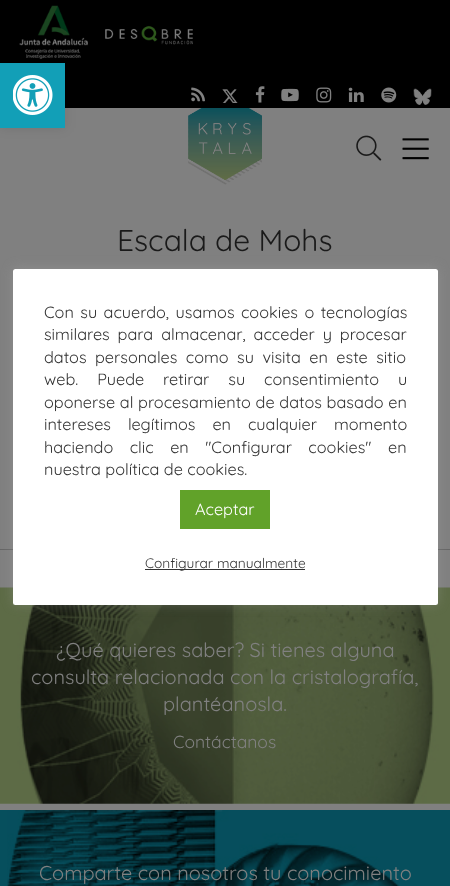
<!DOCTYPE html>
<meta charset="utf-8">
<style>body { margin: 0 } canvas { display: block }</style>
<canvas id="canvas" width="450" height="886"></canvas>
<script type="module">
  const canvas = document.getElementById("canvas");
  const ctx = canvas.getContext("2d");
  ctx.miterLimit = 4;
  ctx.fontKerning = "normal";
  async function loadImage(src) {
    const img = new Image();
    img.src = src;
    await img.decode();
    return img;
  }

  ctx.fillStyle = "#808080";
  ctx.fillRect(0, 0, 450, 886);
  ctx.fillStyle = "#000000";
  ctx.fillRect(0, 0, 450, 108);
  ctx.drawImage(await loadImage("img1.png"), 19, 5, 174, 54);
  ctx.drawImage(await loadImage("img2.png"), 191, 87, 14, 15);
  ctx.drawImage(await loadImage("img3.png"), 222, 89, 16, 14);
  ctx.drawImage(await loadImage("img4.png"), 255, 86, 10, 17);
  ctx.drawImage(await loadImage("img5.png"), 281, 88, 18, 14);
  ctx.drawImage(await loadImage("img6.png"), 316, 87, 16, 16);
  ctx.drawImage(await loadImage("img7.png"), 348, 87, 16, 15);
  ctx.drawImage(await loadImage("img8.png"), 381, 87, 16, 16);
  ctx.drawImage(await loadImage("img9.png"), 413, 88, 19, 17);
  ctx.fillStyle = "rgba(0, 0, 0, 0.1)";
  ctx.filter = "blur(6px)";
  ctx.beginPath();
  ctx.rect(0, 63, 65, 65);
  ctx.fill();
  ctx.filter = "none";
  ctx.fillStyle = "#129fb7";
  ctx.fillRect(0, 63, 65, 65);
  ctx.drawImage(await loadImage("img10.png"), 13, 75, 40, 40);
  ctx.drawImage(await loadImage("img11.png"), 188, 108, 74, 77);
  ctx.drawImage(await loadImage("img12.png"), 356, 135, 26, 26);
  ctx.drawImage(await loadImage("img13.png"), 402, 138, 27, 22);
  ctx.font = "300 30px Quicksand";
  ctx.fillStyle = "#1a1a1a";
  ctx.fillText("Escala de Mohs", 117, 251);
  ctx.fillStyle = "#666666";
  ctx.fillRect(0, 549, 450, 1);
  ctx.drawImage(await loadImage("img14.png"), 0, 587, 450, 217);
  ctx.fillStyle = "rgba(172, 171, 171, 0.3)";
  ctx.filter = "blur(6px)";
  ctx.beginPath();
  ctx.roundRect(13, 268, 425, 336, 2.5);
  ctx.fill();
  ctx.filter = "none";
  ctx.fillStyle = "#ffffff";
  ctx.beginPath();
  ctx.roundRect(13, 269, 425, 336, 2.5);
  ctx.fill();
  ctx.wordSpacing = "2px";
  ctx.font = "300 16.25px Quicksand";
  ctx.fillStyle = "#333333";
  ctx.fillText("Con su acuerdo, usamos cookies o tecnologías", 44, 318);
  ctx.wordSpacing = "3.5px";
  ctx.fillText("similares para almacenar, acceder y procesar", 44, 340);
  ctx.wordSpacing = "4px";
  ctx.fillText("datos personales como su visita en este sitio", 44, 363);
  ctx.wordSpacing = "14.5px";
  ctx.fillText("web. Puede retirar su consentimiento u", 44, 385);
  ctx.wordSpacing = "0.25px";
  ctx.fillText("oponerse al procesamiento de datos basado en", 44, 408);
  ctx.wordSpacing = "12.5px";
  ctx.fillText("intereses legítimos en cualquier momento", 44, 430);
  ctx.wordSpacing = "12px";
  ctx.fillText("haciendo clic en \"Configurar cookies\" en", 44, 453);
  ctx.wordSpacing = "0px";
  ctx.fillText("nuestra política de cookies.", 44, 475);
  ctx.fillStyle = "#61a229";
  ctx.fillRect(180, 490, 90, 39);
  ctx.fillStyle = "#ffffff";
  ctx.fillText("Aceptar", 195, 515);
  ctx.fillStyle = "#333333";
  ctx.fillRect(145, 569, 160, 1);
  ctx.font = "300 13.75px Quicksand";
  ctx.fillText("Configurar manualmente", 145, 568);
  ctx.font = "300 20px Quicksand";
  ctx.fillStyle = "#808080";
  ctx.fillText("¿Qué quieres saber? Si tienes alguna", 56, 657);
  ctx.fillText("consulta relacionada con la cristalografía,", 31, 684);
  ctx.fillText("plantéanosla.", 163, 711);
  ctx.font = "300 17.5px Quicksand";
  ctx.fillText("Contáctanos", 173, 748);
  ctx.fillStyle = "#064f5d";
  ctx.fillRect(0, 810, 450, 76);
  ctx.drawImage(await loadImage("img15.png"), 7, 810, 393, 76);
  ctx.font = "300 20px Quicksand";
  ctx.fillStyle = "#808080";
  ctx.fillText("Comparte con nosotros tu conocimiento", 39, 880);
</script>
